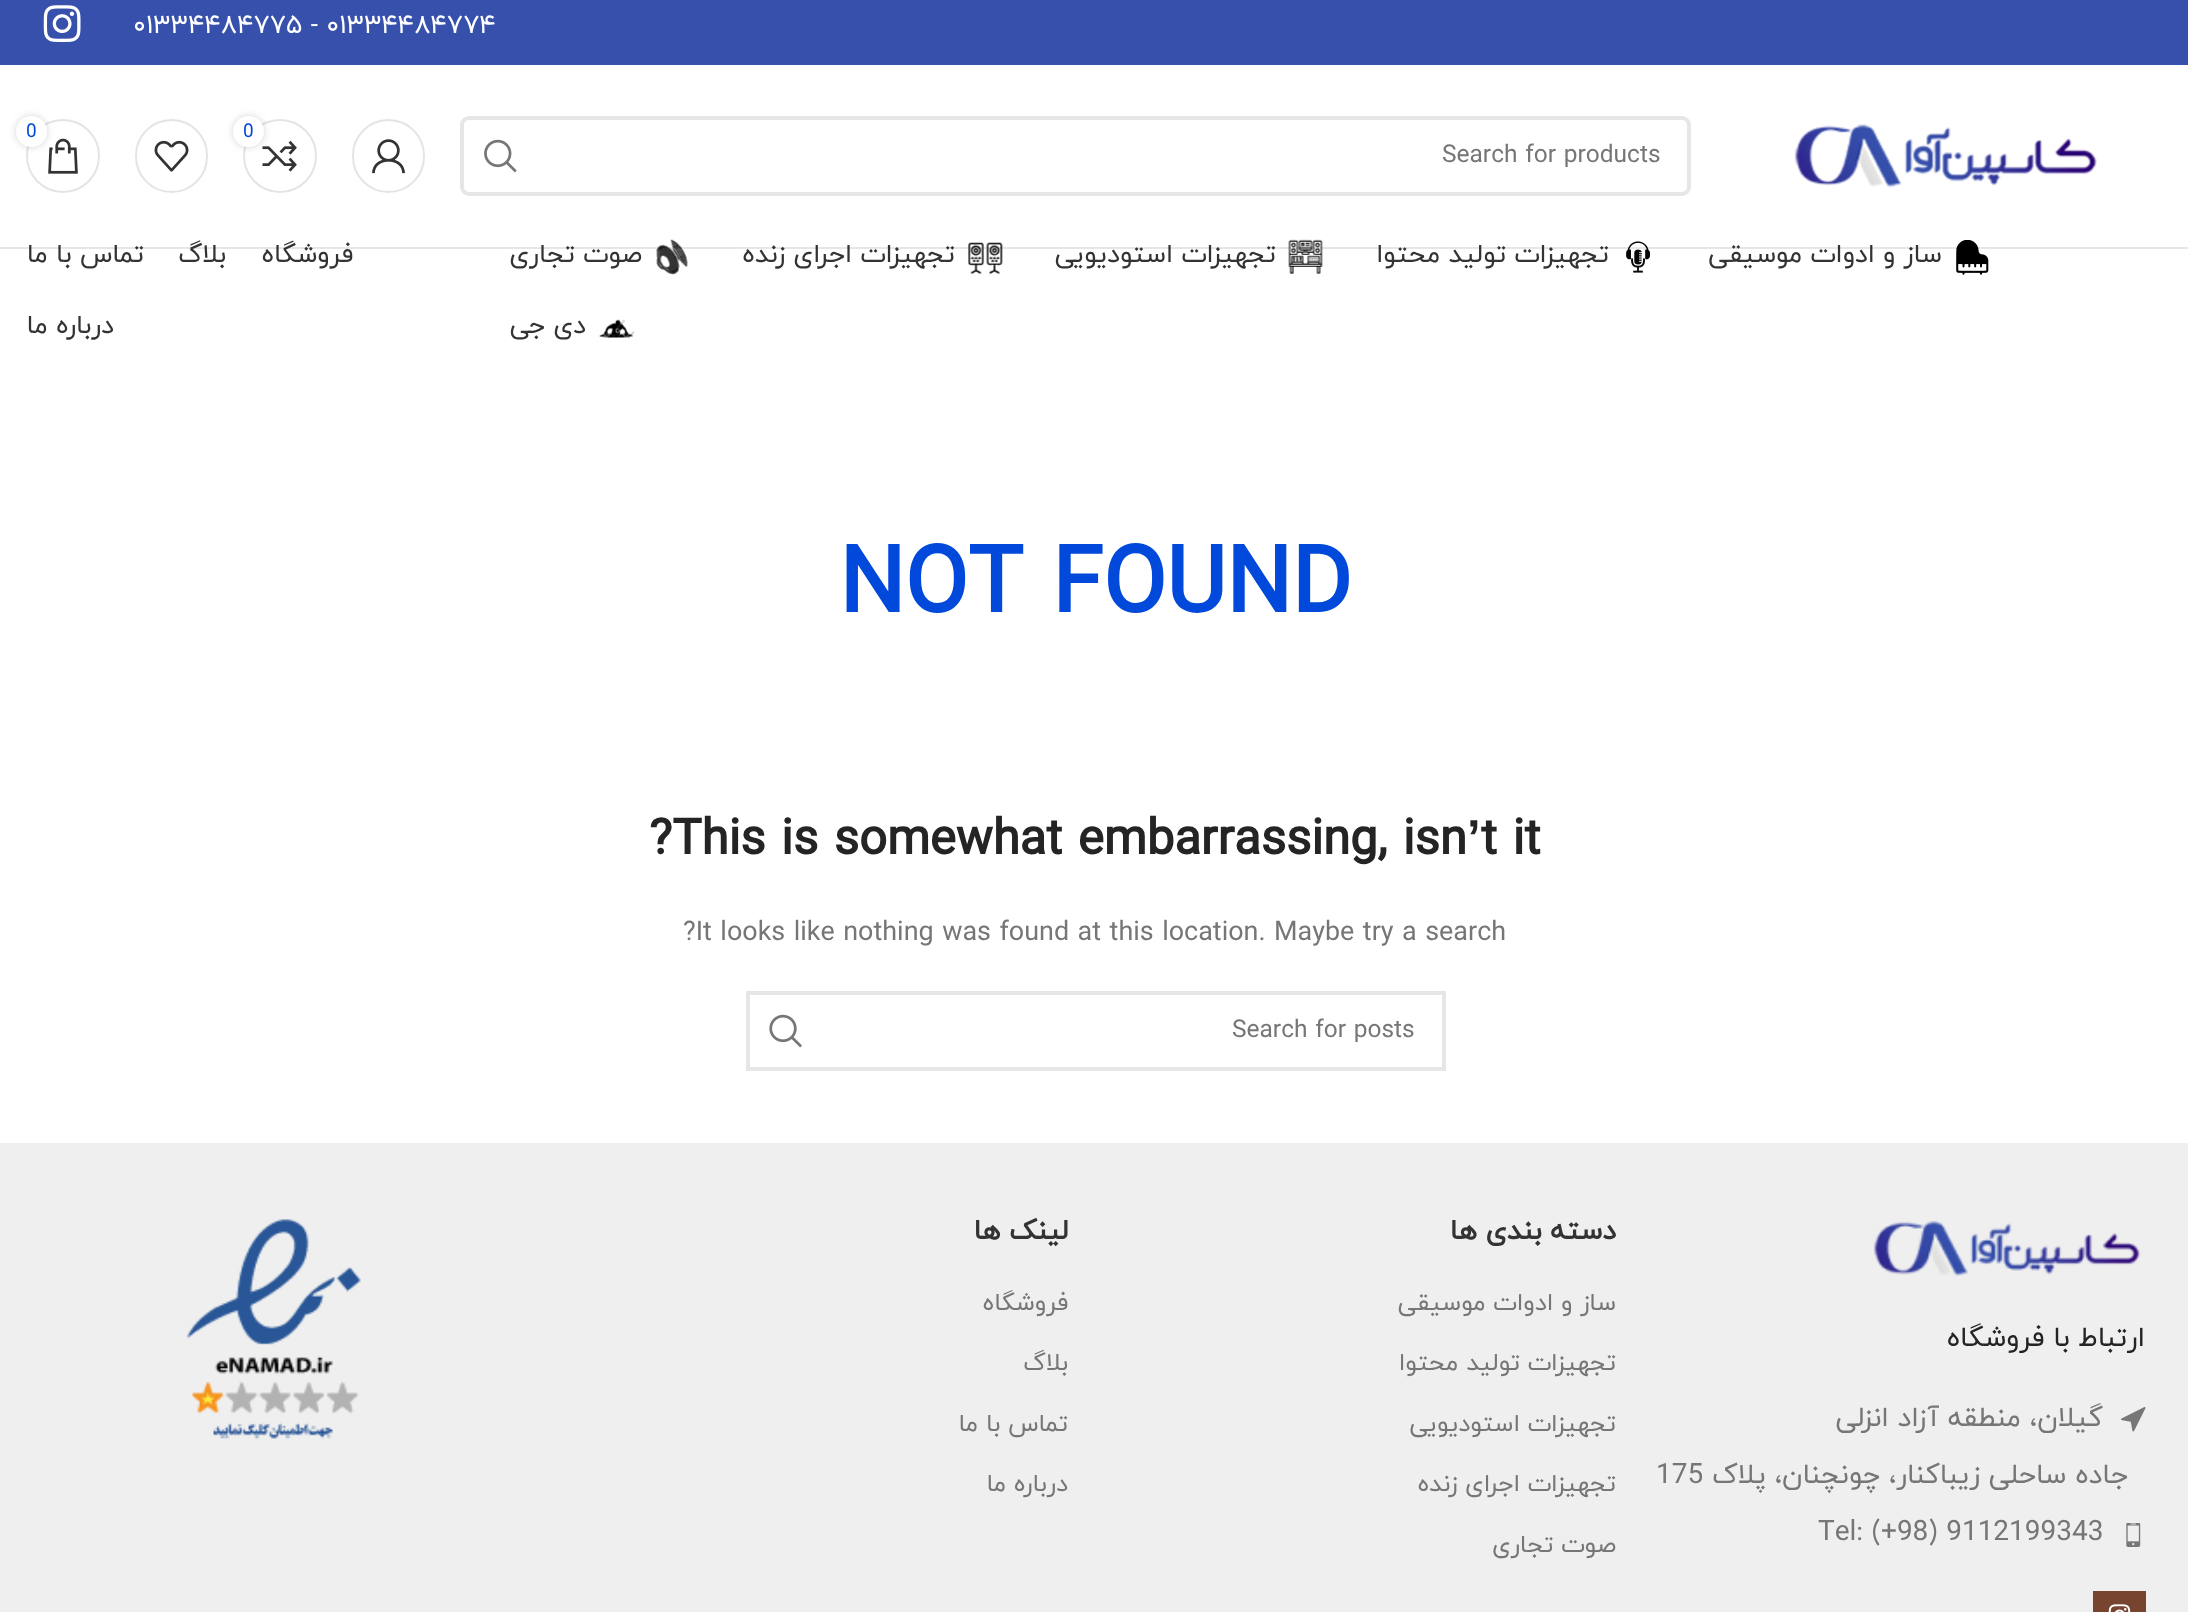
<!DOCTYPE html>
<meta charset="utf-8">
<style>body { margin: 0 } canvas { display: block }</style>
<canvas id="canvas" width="2188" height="1612"></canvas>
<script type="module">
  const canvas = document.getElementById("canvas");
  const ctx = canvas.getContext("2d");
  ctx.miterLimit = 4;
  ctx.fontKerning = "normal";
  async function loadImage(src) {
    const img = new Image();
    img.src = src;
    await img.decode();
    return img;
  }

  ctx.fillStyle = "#ffffff";
  ctx.fillRect(0, 0, 2188, 1612);
  ctx.fillStyle = "#3650ab";
  ctx.fillRect(0, 0, 2188, 65);
  ctx.font = "26.25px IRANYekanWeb";
  ctx.fillStyle = "#ffffff";
  ctx.fillText("۰۱۳۳۴۴۸۴۷۷۵ - ۰۱۳۳۴۴۸۴۷۷۴", 133, 33);
  ctx.drawImage(await loadImage("img1.png"), 43, 5, 38, 37);
  ctx.fillStyle = "#e6e6e6";
  ctx.fillRect(0, 247, 2188, 2);
  ctx.drawImage(await loadImage("img2.png"), 1794, 124, 303, 64);
  ctx.beginPath();
  ctx.roundRect(462, 118, 1227, 76, 7);
  ctx.strokeStyle = "#e6e6e6";
  ctx.lineWidth = 4;
  ctx.stroke();
  ctx.font = "24.5px IRANYekanWeb";
  ctx.fillStyle = "#767676";
  ctx.fillText("Search for products", 1442, 162);
  ctx.drawImage(await loadImage("img3.png"), 484, 139, 33, 34);
  ctx.beginPath();
  ctx.roundRect(353, 120, 71, 72, 35.5);
  ctx.strokeStyle = "#e4e4e4";
  ctx.lineWidth = 2;
  ctx.stroke();
  ctx.drawImage(await loadImage("img4.png"), 372, 139, 33, 35);
  ctx.beginPath();
  ctx.arc(280, 156, 36, 0, Math.PI * 2);
  ctx.stroke();
  ctx.drawImage(await loadImage("img5.png"), 262, 140, 35, 32);
  ctx.fillStyle = "rgba(0, 0, 0, 0.17)";
  ctx.filter = "blur(3.5px)";
  ctx.beginPath();
  ctx.roundRect(233, 116, 31, 31, 15.5);
  ctx.fill();
  ctx.filter = "none";
  ctx.fillStyle = "#ffffff";
  ctx.beginPath();
  ctx.arc(248.5, 131.5, 15.5, 0, Math.PI * 2);
  ctx.fill();
  ctx.font = "19px IRANYekanWeb";
  ctx.fillStyle = "#0049db";
  ctx.fillText("0", 243, 137);
  ctx.beginPath();
  ctx.roundRect(136, 120, 71, 72, 35.5);
  ctx.stroke();
  ctx.drawImage(await loadImage("img6.png"), 154, 140, 35, 32);
  ctx.beginPath();
  ctx.arc(63, 156, 36, 0, Math.PI * 2);
  ctx.stroke();
  ctx.drawImage(await loadImage("img7.png"), 48, 138, 30, 36);
  ctx.fillStyle = "rgba(0, 0, 0, 0.17)";
  ctx.filter = "blur(3.5px)";
  ctx.beginPath();
  ctx.roundRect(16, 116, 31, 31, 15.5);
  ctx.fill();
  ctx.filter = "none";
  ctx.fillStyle = "#ffffff";
  ctx.beginPath();
  ctx.arc(31.5, 131.5, 15.5, 0, Math.PI * 2);
  ctx.fill();
  ctx.fillStyle = "#0049db";
  ctx.fillText("0", 26, 137);
  ctx.drawImage(await loadImage("img8.png"), 1956, 240, 33, 35);
  ctx.direction = "rtl";
  ctx.font = "26.25px IRANYekanWeb";
  ctx.fillStyle = "#333333";
  ctx.fillText("ساز و ادوات موسیقی", 1942, 262);
  ctx.drawImage(await loadImage("img9.png"), 1626, 241, 24, 32);
  ctx.fillText("تجهیزات تولید محتوا", 1609, 262);
  ctx.drawImage(await loadImage("img10.png"), 1288, 239, 35, 35);
  ctx.fillText("تجهیزات استودیویی", 1276, 262);
  ctx.drawImage(await loadImage("img11.png"), 968, 242, 35, 32);
  ctx.fillText("تجهیزات اجرای زنده", 955, 262);
  ctx.drawImage(await loadImage("img12.png"), 656, 239, 32, 36);
  ctx.fillText("صوت تجاری", 642, 262);
  ctx.drawImage(await loadImage("img13.png"), 599, 319, 35, 20);
  ctx.fillText("دی جی", 586, 333);
  ctx.fillText("فروشگاه", 353, 262);
  ctx.fillText("بلاگ", 226, 262);
  ctx.fillText("تماس با ما", 144, 262);
  ctx.fillText("درباره ما", 114, 333);
  ctx.direction = "ltr";
  ctx.font = "bold 92px IRANYekanWeb";
  ctx.fillStyle = "#0049db";
  ctx.fillText("NOT FOUND", 839, 612);
  ctx.font = "bold 49px IRANYekanWeb";
  ctx.fillStyle = "#242424";
  ctx.fillText("t it", 1481, 854);
  ctx.font = "bold 49px Liberation Sans";
  ctx.fillText("’", 1467, 854);
  ctx.font = "bold 49px IRANYekanWeb";
  ctx.fillText("?This is somewhat embarrassing, isn", 649, 854);
  ctx.font = "26.95px IRANYekanWeb";
  ctx.fillStyle = "#767676";
  ctx.fillText("?It looks like nothing was found at this location. Maybe try a search", 683, 940);
  ctx.strokeStyle = "#e6e6e6";
  ctx.lineWidth = 4;
  ctx.strokeRect(748, 993, 696, 76);
  ctx.font = "24.5px IRANYekanWeb";
  ctx.fillText("Search for posts", 1232, 1037);
  ctx.drawImage(await loadImage("img14.png"), 769, 1014, 33, 34);
  ctx.fillStyle = "#efefef";
  ctx.fillRect(0, 1143, 2188, 469);
  ctx.drawImage(await loadImage("img15.png"), 1873, 1220, 268, 56);
  ctx.direction = "rtl";
  ctx.font = "28px IRANYekanWeb";
  ctx.fillStyle = "#242424";
  ctx.fillText("ارتباط با فروشگاه", 2145, 1346);
  ctx.drawImage(await loadImage("img16.png"), 2121, 1407, 25, 25);
  ctx.fillStyle = "#767676";
  ctx.fillText("گیلان، منطقه آزاد انزلی", 2103, 1426);
  ctx.fillText("جاده ساحلی زیباکنار، چونچنان، پلاک", 2128, 1483);
  ctx.direction = "ltr";
  ctx.fillText("175", 1656, 1483);
  ctx.drawImage(await loadImage("img17.png"), 2126, 1523, 15, 24);
  ctx.fillText("Tel: (+98) 9112199343", 1818, 1540);
  ctx.fillStyle = "#774430";
  ctx.fillRect(2093, 1591, 53, 21);
  ctx.drawImage(await loadImage("img18.png"), 2108, 1604, 23, 8);
  ctx.direction = "rtl";
  ctx.font = "bold 28px IRANYekanWeb";
  ctx.fillStyle = "#333333";
  ctx.fillText("دسته بندی ها", 1616, 1239);
  ctx.font = "24.5px IRANYekanWeb";
  ctx.fillStyle = "#767676";
  ctx.fillText("ساز و ادوات موسیقی", 1616, 1310);
  ctx.fillText("تجهیزات تولید محتوا", 1616, 1370);
  ctx.fillText("تجهیزات استودیویی", 1616, 1431);
  ctx.fillText("تجهیزات اجرای زنده", 1616, 1491);
  ctx.fillText("صوت تجاری", 1616, 1552);
  ctx.font = "bold 28px IRANYekanWeb";
  ctx.fillStyle = "#333333";
  ctx.fillText("لینک ها", 1068, 1239);
  ctx.font = "24.5px IRANYekanWeb";
  ctx.fillStyle = "#767676";
  ctx.fillText("فروشگاه", 1068, 1310);
  ctx.fillText("بلاگ", 1068, 1370);
  ctx.fillText("تماس با ما", 1068, 1431);
  ctx.fillText("درباره ما", 1068, 1491);
  ctx.drawImage(await loadImage("img19.png"), 186, 1219, 175, 220);
</script>
